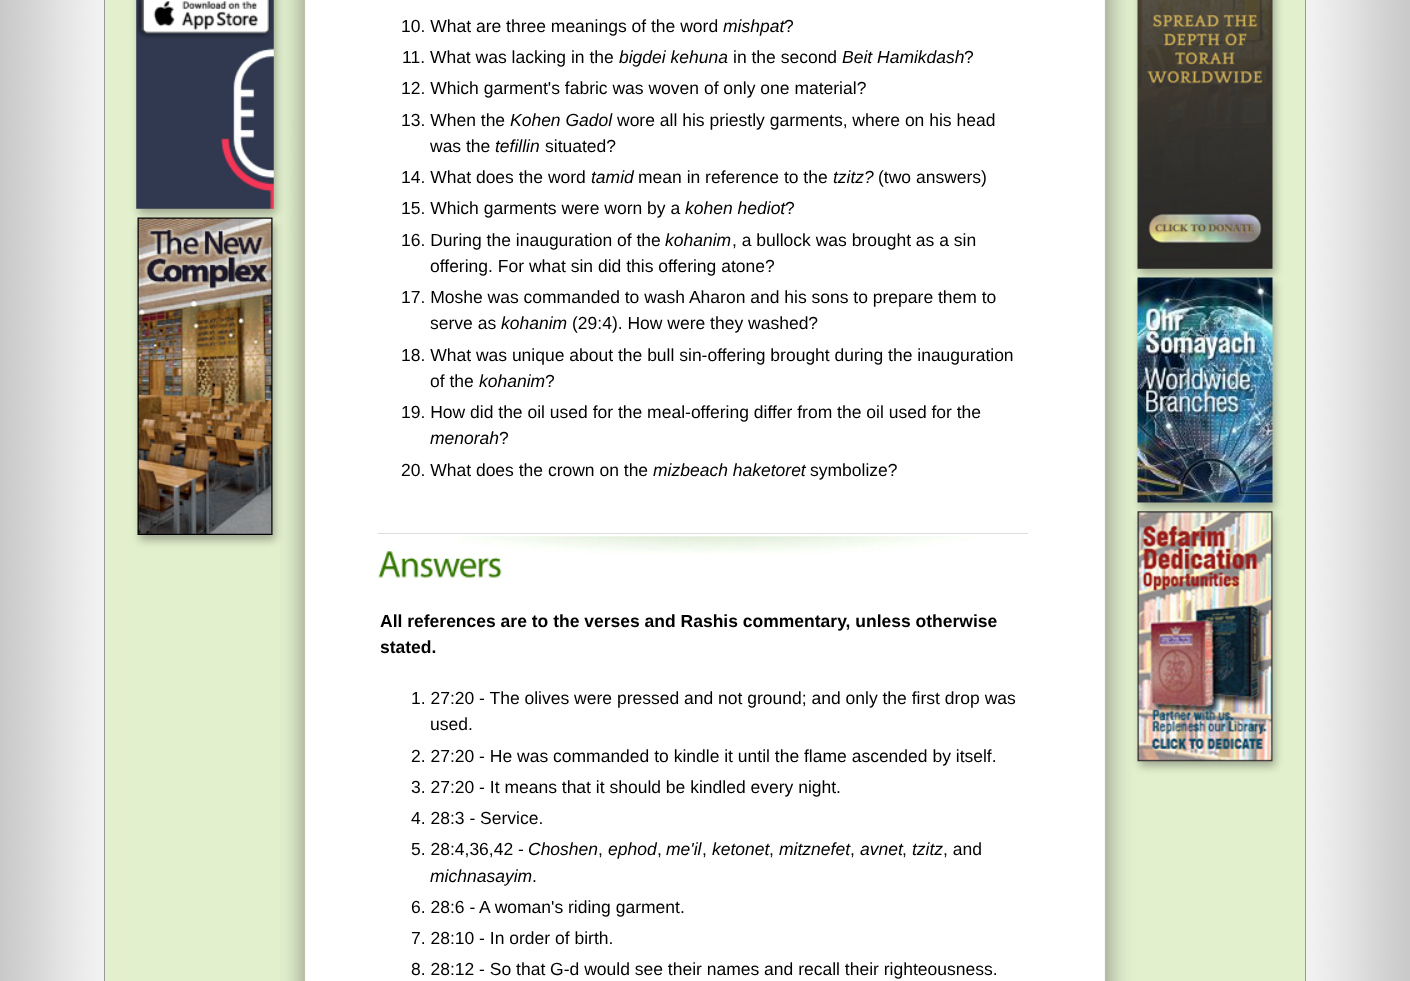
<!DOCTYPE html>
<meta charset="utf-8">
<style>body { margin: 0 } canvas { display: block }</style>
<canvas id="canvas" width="1410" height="981"></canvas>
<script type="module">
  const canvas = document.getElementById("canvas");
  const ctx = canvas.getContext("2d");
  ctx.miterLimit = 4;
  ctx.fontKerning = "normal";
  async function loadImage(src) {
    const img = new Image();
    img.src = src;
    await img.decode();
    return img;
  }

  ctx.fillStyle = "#ffffff";
  ctx.fillRect(0, 0, 1410, 981);
  ctx.drawImage(await loadImage("img1.png"), 0, 0, 1410, 981);
  ctx.fillStyle = "#999999";
  ctx.fillRect(1305, 0, 1, 981);
  ctx.fillRect(104, 0, 1, 981);
  ctx.drawImage(await loadImage("img2.png"), 105, 0, 1200, 981);
  ctx.fillStyle = "rgba(0, 0, 0, 0.3)";
  ctx.filter = "blur(4.5px)";
  ctx.beginPath();
  ctx.rect(139, -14, 137, 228);
  ctx.fill();
  ctx.filter = "none";
  ctx.drawImage(await loadImage("img3.png"), 136, 0, 138, 209);
  ctx.filter = "blur(4.5px)";
  ctx.beginPath();
  ctx.rect(140, 223, 135, 317);
  ctx.fill();
  ctx.filter = "none";
  ctx.drawImage(await loadImage("img4.png"), 137, 217, 136, 318);
  ctx.font = "17.5px Liberation Sans";
  ctx.fillStyle = "#000000";
  ctx.fillText("10. What are three meanings of the word", 401, 32);
  ctx.font = "italic 17.5px Liberation Sans";
  ctx.fillText("mishpat", 723, 32);
  ctx.font = "17.5px Liberation Sans";
  ctx.fillText("?", 784, 32);
  ctx.fillText("11. What was lacking in the", 402, 63);
  ctx.font = "italic 17.5px Liberation Sans";
  ctx.fillText("bigdei kehuna", 619, 63);
  ctx.font = "17.5px Liberation Sans";
  ctx.fillText("in the second", 733, 63);
  ctx.font = "italic 17.5px Liberation Sans";
  ctx.fillText("Beit Hamikdash", 842, 63);
  ctx.font = "17.5px Liberation Sans";
  ctx.fillText("?", 964, 63);
  ctx.fillText("12. Which garment's fabric was woven of only one material?", 401, 94);
  ctx.fillText("13. When the", 401, 126);
  ctx.font = "italic 17.5px Liberation Sans";
  ctx.fillText("Kohen Gadol", 510, 126);
  ctx.font = "17.5px Liberation Sans";
  ctx.fillText("wore all his priestly garments, where on his head", 617, 126);
  ctx.fillText("was the", 430, 152);
  ctx.font = "italic 17.5px Liberation Sans";
  ctx.fillText("tefillin", 495, 152);
  ctx.font = "17.5px Liberation Sans";
  ctx.fillText("situated?", 545, 152);
  ctx.fillText("14. What does the word", 401, 183);
  ctx.font = "italic 17.5px Liberation Sans";
  ctx.fillText("tamid", 591, 183);
  ctx.font = "17.5px Liberation Sans";
  ctx.fillText("mean in reference to the", 638, 183);
  ctx.font = "italic 17.5px Liberation Sans";
  ctx.fillText("tzitz?", 833, 183);
  ctx.font = "17.5px Liberation Sans";
  ctx.fillText("(two answers)", 878, 183);
  ctx.fillText("15. Which garments were worn by a", 401, 214);
  ctx.font = "italic 17.5px Liberation Sans";
  ctx.fillText("kohen hediot", 685, 214);
  ctx.font = "17.5px Liberation Sans";
  ctx.fillText("?", 785, 214);
  ctx.fillText("16. During the inauguration of the", 401, 246);
  ctx.font = "italic 17.5px Liberation Sans";
  ctx.fillText("kohanim", 665, 246);
  ctx.font = "17.5px Liberation Sans";
  ctx.fillText(", a bullock was brought as a sin", 732, 246);
  ctx.fillText("offering. For what sin did this offering atone?", 430, 272);
  ctx.fillText("17. Moshe was commanded to wash Aharon and his sons to prepare them to", 401, 303);
  ctx.fillText("serve as", 430, 329);
  ctx.font = "italic 17.5px Liberation Sans";
  ctx.fillText("kohanim", 501, 329);
  ctx.font = "17.5px Liberation Sans";
  ctx.fillText("(29:4). How were they washed?", 572, 329);
  ctx.fillText("18. What was unique about the bull sin-offering brought during the inauguration", 401, 361);
  ctx.fillText("of the", 430, 387);
  ctx.font = "italic 17.5px Liberation Sans";
  ctx.fillText("kohanim", 479, 387);
  ctx.font = "17.5px Liberation Sans";
  ctx.fillText("?", 545, 387);
  ctx.fillText("19. How did the oil used for the meal-offering differ from the oil used for the", 401, 418);
  ctx.font = "italic 17.5px Liberation Sans";
  ctx.fillText("menorah", 430, 444);
  ctx.font = "17.5px Liberation Sans";
  ctx.fillText("?", 499, 444);
  ctx.fillText("20. What does the crown on the", 401, 476);
  ctx.font = "italic 17.5px Liberation Sans";
  ctx.fillText("mizbeach haketoret", 653, 476);
  ctx.font = "17.5px Liberation Sans";
  ctx.fillText("symbolize?", 810, 476);
  ctx.drawImage(await loadImage("img5.png"), 458, 535, 519, 19);
  ctx.fillStyle = "#dddddd";
  ctx.fillRect(378, 533, 650, 1);
  ctx.drawImage(await loadImage("img6.png"), 378, 551, 124, 27);
  ctx.font = "bold 17.5px Liberation Sans";
  ctx.fillStyle = "#000000";
  ctx.fillText("All references are to the verses and Rashis commentary, unless otherwise", 380, 627);
  ctx.fillText("stated.", 380, 653);
  ctx.font = "17.5px Liberation Sans";
  ctx.fillText("1. 27:20 - The olives were pressed and not ground; and only the first drop was", 411, 704);
  ctx.fillText("used.", 430, 730);
  ctx.fillText("2. 27:20 - He was commanded to kindle it until the flame ascended by itself.", 411, 762);
  ctx.fillText("3. 27:20 - It means that it should be kindled every night.", 411, 793);
  ctx.fillText("4. 28:3 - Service.", 411, 824);
  ctx.fillText("5. 28:4,36,42 -", 411, 855);
  ctx.font = "italic 17.5px Liberation Sans";
  ctx.fillText("Choshen", 528, 855);
  ctx.font = "17.5px Liberation Sans";
  ctx.fillText(",", 598, 855);
  ctx.font = "italic 17.5px Liberation Sans";
  ctx.fillText("ephod", 608, 855);
  ctx.font = "17.5px Liberation Sans";
  ctx.fillText(",", 657, 855);
  ctx.font = "italic 17.5px Liberation Sans";
  ctx.fillText("me'il", 666, 855);
  ctx.font = "17.5px Liberation Sans";
  ctx.fillText(",", 702, 855);
  ctx.font = "italic 17.5px Liberation Sans";
  ctx.fillText("ketonet", 712, 855);
  ctx.font = "17.5px Liberation Sans";
  ctx.fillText(",", 769, 855);
  ctx.font = "italic 17.5px Liberation Sans";
  ctx.fillText("mitznefet", 779, 855);
  ctx.font = "17.5px Liberation Sans";
  ctx.fillText(",", 850, 855);
  ctx.font = "italic 17.5px Liberation Sans";
  ctx.fillText("avnet", 860, 855);
  ctx.font = "17.5px Liberation Sans";
  ctx.fillText(",", 902, 855);
  ctx.font = "italic 17.5px Liberation Sans";
  ctx.fillText("tzitz", 912, 855);
  ctx.font = "17.5px Liberation Sans";
  ctx.fillText(", and", 943, 855);
  ctx.font = "italic 17.5px Liberation Sans";
  ctx.fillText("michnasayim", 430, 882);
  ctx.font = "17.5px Liberation Sans";
  ctx.fillText(".", 532, 882);
  ctx.fillText("6. 28:6 - A woman's riding garment.", 411, 913);
  ctx.fillText("7. 28:10 - In order of birth.", 411, 944);
  ctx.fillText("8. 28:12 - So that G-d would see their names and recall their righteousness.", 411, 975);
  ctx.fillStyle = "rgba(0, 0, 0, 0.3)";
  ctx.filter = "blur(4.5px)";
  ctx.beginPath();
  ctx.rect(1140, -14, 135, 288);
  ctx.fill();
  ctx.filter = "none";
  ctx.drawImage(await loadImage("img7.png"), 1137, 0, 136, 269);
  ctx.filter = "blur(4.5px)";
  ctx.beginPath();
  ctx.rect(1140, 283, 135, 225);
  ctx.fill();
  ctx.filter = "none";
  ctx.drawImage(await loadImage("img8.png"), 1137, 277, 136, 226);
  ctx.filter = "blur(4.5px)";
  ctx.beginPath();
  ctx.rect(1140, 516, 135, 250);
  ctx.fill();
  ctx.filter = "none";
  ctx.drawImage(await loadImage("img9.png"), 1137, 511, 136, 251);
</script>
